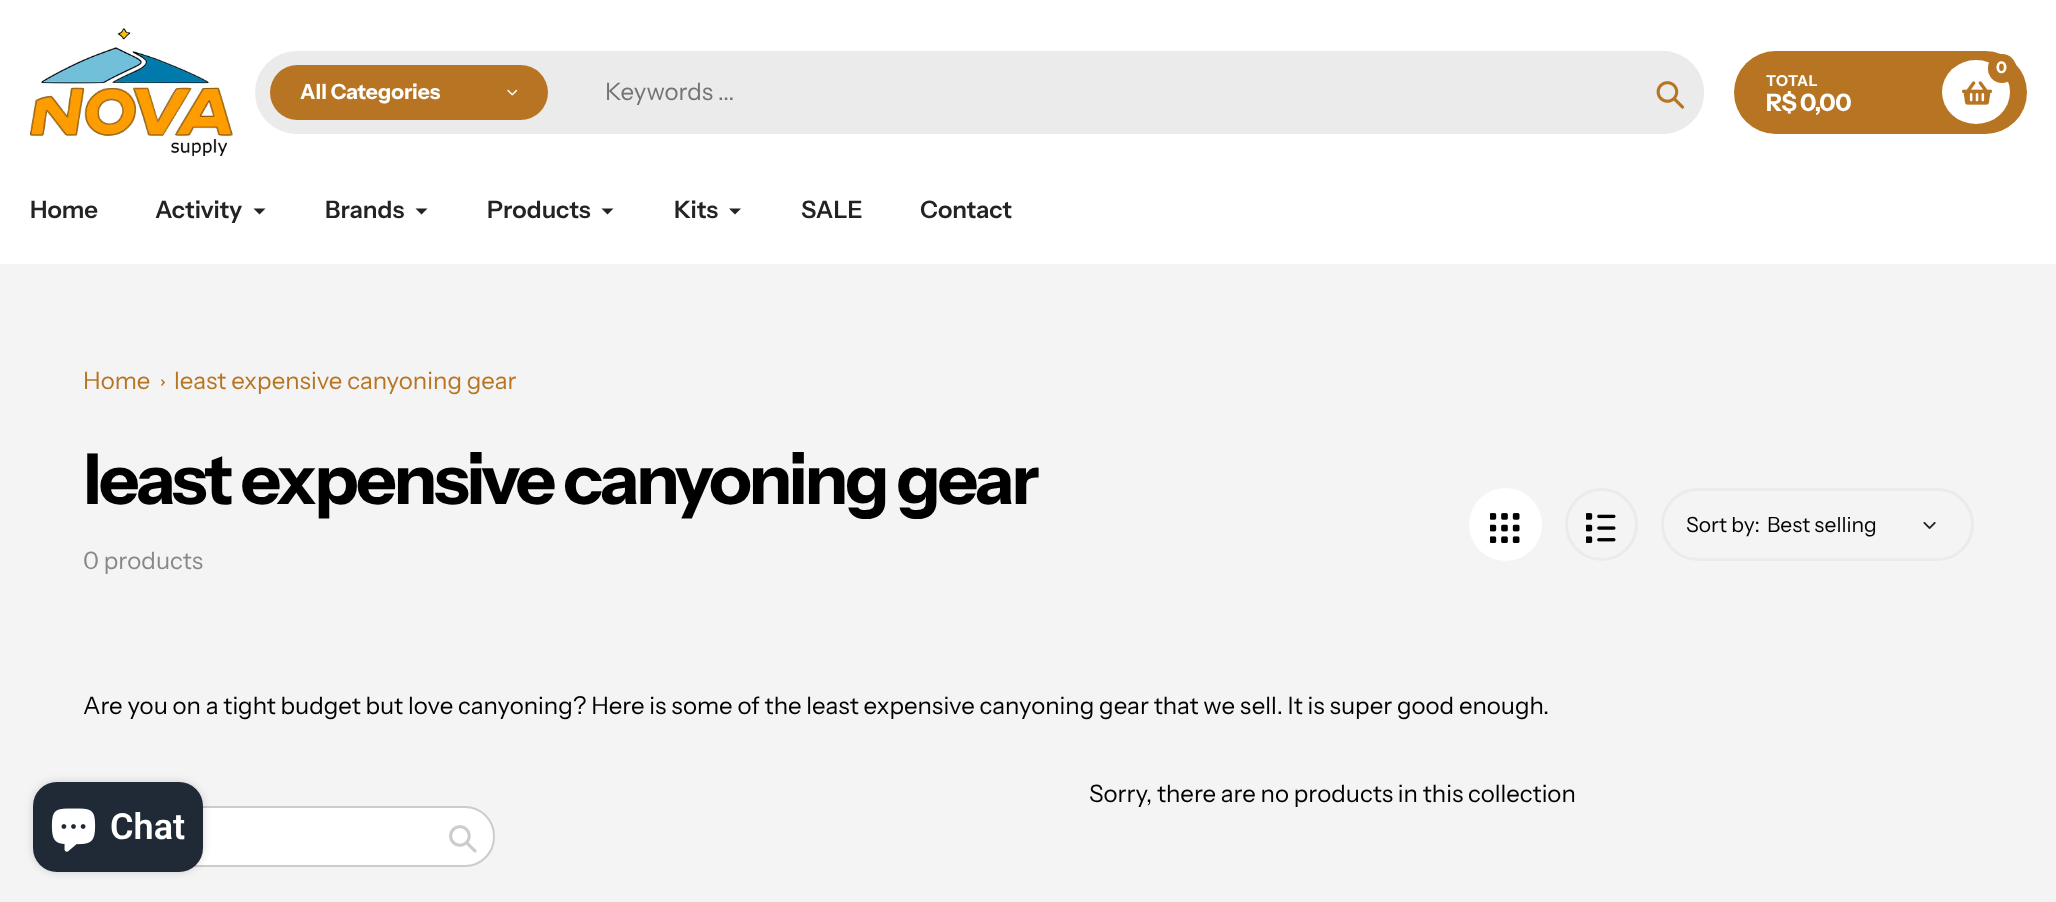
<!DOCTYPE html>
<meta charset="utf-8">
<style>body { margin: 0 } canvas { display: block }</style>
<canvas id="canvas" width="2056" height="902"></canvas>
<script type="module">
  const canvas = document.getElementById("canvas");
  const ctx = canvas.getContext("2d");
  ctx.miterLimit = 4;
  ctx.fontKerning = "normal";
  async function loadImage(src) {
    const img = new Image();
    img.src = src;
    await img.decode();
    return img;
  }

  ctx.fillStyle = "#f4f4f4";
  ctx.fillRect(0, 0, 2056, 902);
  ctx.fillStyle = "#ffffff";
  ctx.fillRect(0, 0, 2056, 264);
  ctx.drawImage(await loadImage("img1.png"), 30, 28, 203, 128);
  ctx.fillStyle = "#ebebeb";
  ctx.beginPath();
  ctx.roundRect(255, 51, 1449, 83, 41.5);
  ctx.fill();
  ctx.fillStyle = "#b77523";
  ctx.beginPath();
  ctx.roundRect(270, 65, 278, 55, 27.5);
  ctx.fill();
  ctx.font = "bold 21px Instrument Sans";
  ctx.fillStyle = "#ffffff";
  ctx.fillText("All Categories", 300, 99);
  ctx.drawImage(await loadImage("img2.png"), 507, 89, 11, 7);
  ctx.fillStyle = "#ebebeb";
  ctx.beginPath();
  ctx.roundRect(578, 51, 1126, 83, 41.5);
  ctx.fill();
  ctx.font = "24px Instrument Sans";
  ctx.fillStyle = "#737373";
  ctx.fillText("Keywords ...", 605, 100);
  ctx.drawImage(await loadImage("img3.png"), 1656, 81, 29, 28);
  ctx.fillStyle = "#b77523";
  ctx.beginPath();
  ctx.roundRect(1734, 51, 293, 83, 41.5);
  ctx.fill();
  ctx.fillStyle = "#ffffff";
  ctx.beginPath();
  ctx.ellipse(1976, 92, 34, 32, 0, 0, Math.PI * 2);
  ctx.fill();
  ctx.drawImage(await loadImage("img4.png"), 1962, 81, 30, 24);
  ctx.fillStyle = "#b77523";
  ctx.beginPath();
  ctx.roundRect(1988, 54, 28, 29, 14);
  ctx.fill();
  ctx.font = "bold 16px Instrument Sans";
  ctx.fillStyle = "#ffffff";
  ctx.fillText("0", 1996, 73);
  ctx.letterSpacing = "0.75px";
  ctx.font = "bold 15px Instrument Sans";
  ctx.fillText("TOTAL", 1766, 86);
  ctx.letterSpacing = "-0.75px";
  ctx.font = "bold 24px Instrument Sans";
  ctx.fillText("R$ 0,00", 1766, 111);
  ctx.letterSpacing = "0px";
  ctx.font = "600 24px Instrument Sans";
  ctx.fillStyle = "#232323";
  ctx.fillText("Home", 30, 218);
  ctx.fillText("Activity", 155, 218);
  ctx.beginPath();
  ctx.moveTo(265.5, 208.5);
  ctx.lineTo(259.5, 214.5);
  ctx.lineTo(253.5, 208.5);
  ctx.fill();
  ctx.fillText("Brands", 325, 218);
  ctx.beginPath();
  ctx.moveTo(427.5, 208.5);
  ctx.lineTo(421.5, 214.5);
  ctx.lineTo(415.5, 208.5);
  ctx.fill();
  ctx.fillText("Products", 487, 218);
  ctx.beginPath();
  ctx.moveTo(613.5, 208.5);
  ctx.lineTo(607.5, 214.5);
  ctx.lineTo(601.5, 208.5);
  ctx.fill();
  ctx.fillText("Kits", 674, 218);
  ctx.beginPath();
  ctx.moveTo(741, 208.5);
  ctx.lineTo(735, 214.5);
  ctx.lineTo(729, 208.5);
  ctx.fill();
  ctx.fillText("SALE", 801, 218);
  ctx.fillText("Contact", 920, 218);
  ctx.font = "24px Instrument Sans";
  ctx.fillStyle = "#b77523";
  ctx.fillText("Home", 83, 389);
  ctx.beginPath();
  ctx.moveTo(162, 379);
  ctx.lineTo(165, 382.5);
  ctx.lineTo(164, 383.5);
  ctx.lineTo(161, 380);
  ctx.closePath();
  ctx.fill();
  ctx.beginPath();
  ctx.moveTo(164, 381.5);
  ctx.lineTo(165, 382.5);
  ctx.lineTo(162, 386);
  ctx.lineTo(161, 385);
  ctx.closePath();
  ctx.fill();
  ctx.fillText("least expensive canyoning gear", 174, 389);
  ctx.letterSpacing = "-3px";
  ctx.font = "bold 70.25px Instrument Sans";
  ctx.fillStyle = "#000000";
  ctx.fillText("least expensive canyoning gear", 83, 504);
  ctx.letterSpacing = "0px";
  ctx.font = "24px Instrument Sans";
  ctx.fillStyle = "#888888";
  ctx.fillText("0 products", 83, 569);
  ctx.fillStyle = "#ffffff";
  ctx.beginPath();
  ctx.arc(1505.5, 524.5, 36.5, 0, Math.PI * 2);
  ctx.fill();
  ctx.drawImage(await loadImage("img5.png"), 1490, 513, 30, 30);
  ctx.beginPath();
  ctx.arc(1601.5, 524.5, 35, 0, Math.PI * 2);
  ctx.strokeStyle = "#ebebeb";
  ctx.lineWidth = 3;
  ctx.stroke();
  ctx.drawImage(await loadImage("img6.png"), 1586, 513, 30, 30);
  ctx.beginPath();
  ctx.roundRect(1662.5, 489.5, 310, 70, 35);
  ctx.stroke();
  ctx.font = "21px Instrument Sans";
  ctx.fillStyle = "#000000";
  ctx.fillText("Sort by:", 1686, 532);
  ctx.fillText("Best selling", 1767, 532);
  ctx.drawImage(await loadImage("img7.png"), 1923, 521, 13, 8);
  ctx.font = "24px Instrument Sans";
  ctx.fillText("Are you on a tight budget but love canyoning? Here is some of the least expensive canyoning gear that we sell. It is super good enough.", 83, 714);
  ctx.fillText("Sorry, there are no products in this collection", 1089, 802);
  ctx.fillStyle = "#ffffff";
  ctx.beginPath();
  ctx.roundRect(84, 807, 410, 59, 29);
  ctx.fill();
  ctx.strokeStyle = "#cccccc";
  ctx.lineWidth = 2;
  ctx.stroke();
  ctx.drawImage(await loadImage("img8.png"), 449, 825, 28, 28);
  ctx.fillStyle = "rgba(0, 0, 0, 0.15)";
  ctx.filter = "blur(4px)";
  ctx.beginPath();
  ctx.roundRect(33, 782, 170, 90, 24);
  ctx.fill();
  ctx.filter = "none";
  ctx.fillStyle = "#202a36";
  ctx.beginPath();
  ctx.roundRect(33, 782, 170, 90, 24);
  ctx.fill();
  ctx.drawImage(await loadImage("img9.png"), 51, 808, 45, 44);
  ctx.font = "600 36px Roboto";
  ctx.fillStyle = "#ffffff";
  ctx.fillText("Chat", 110, 839);
</script>
